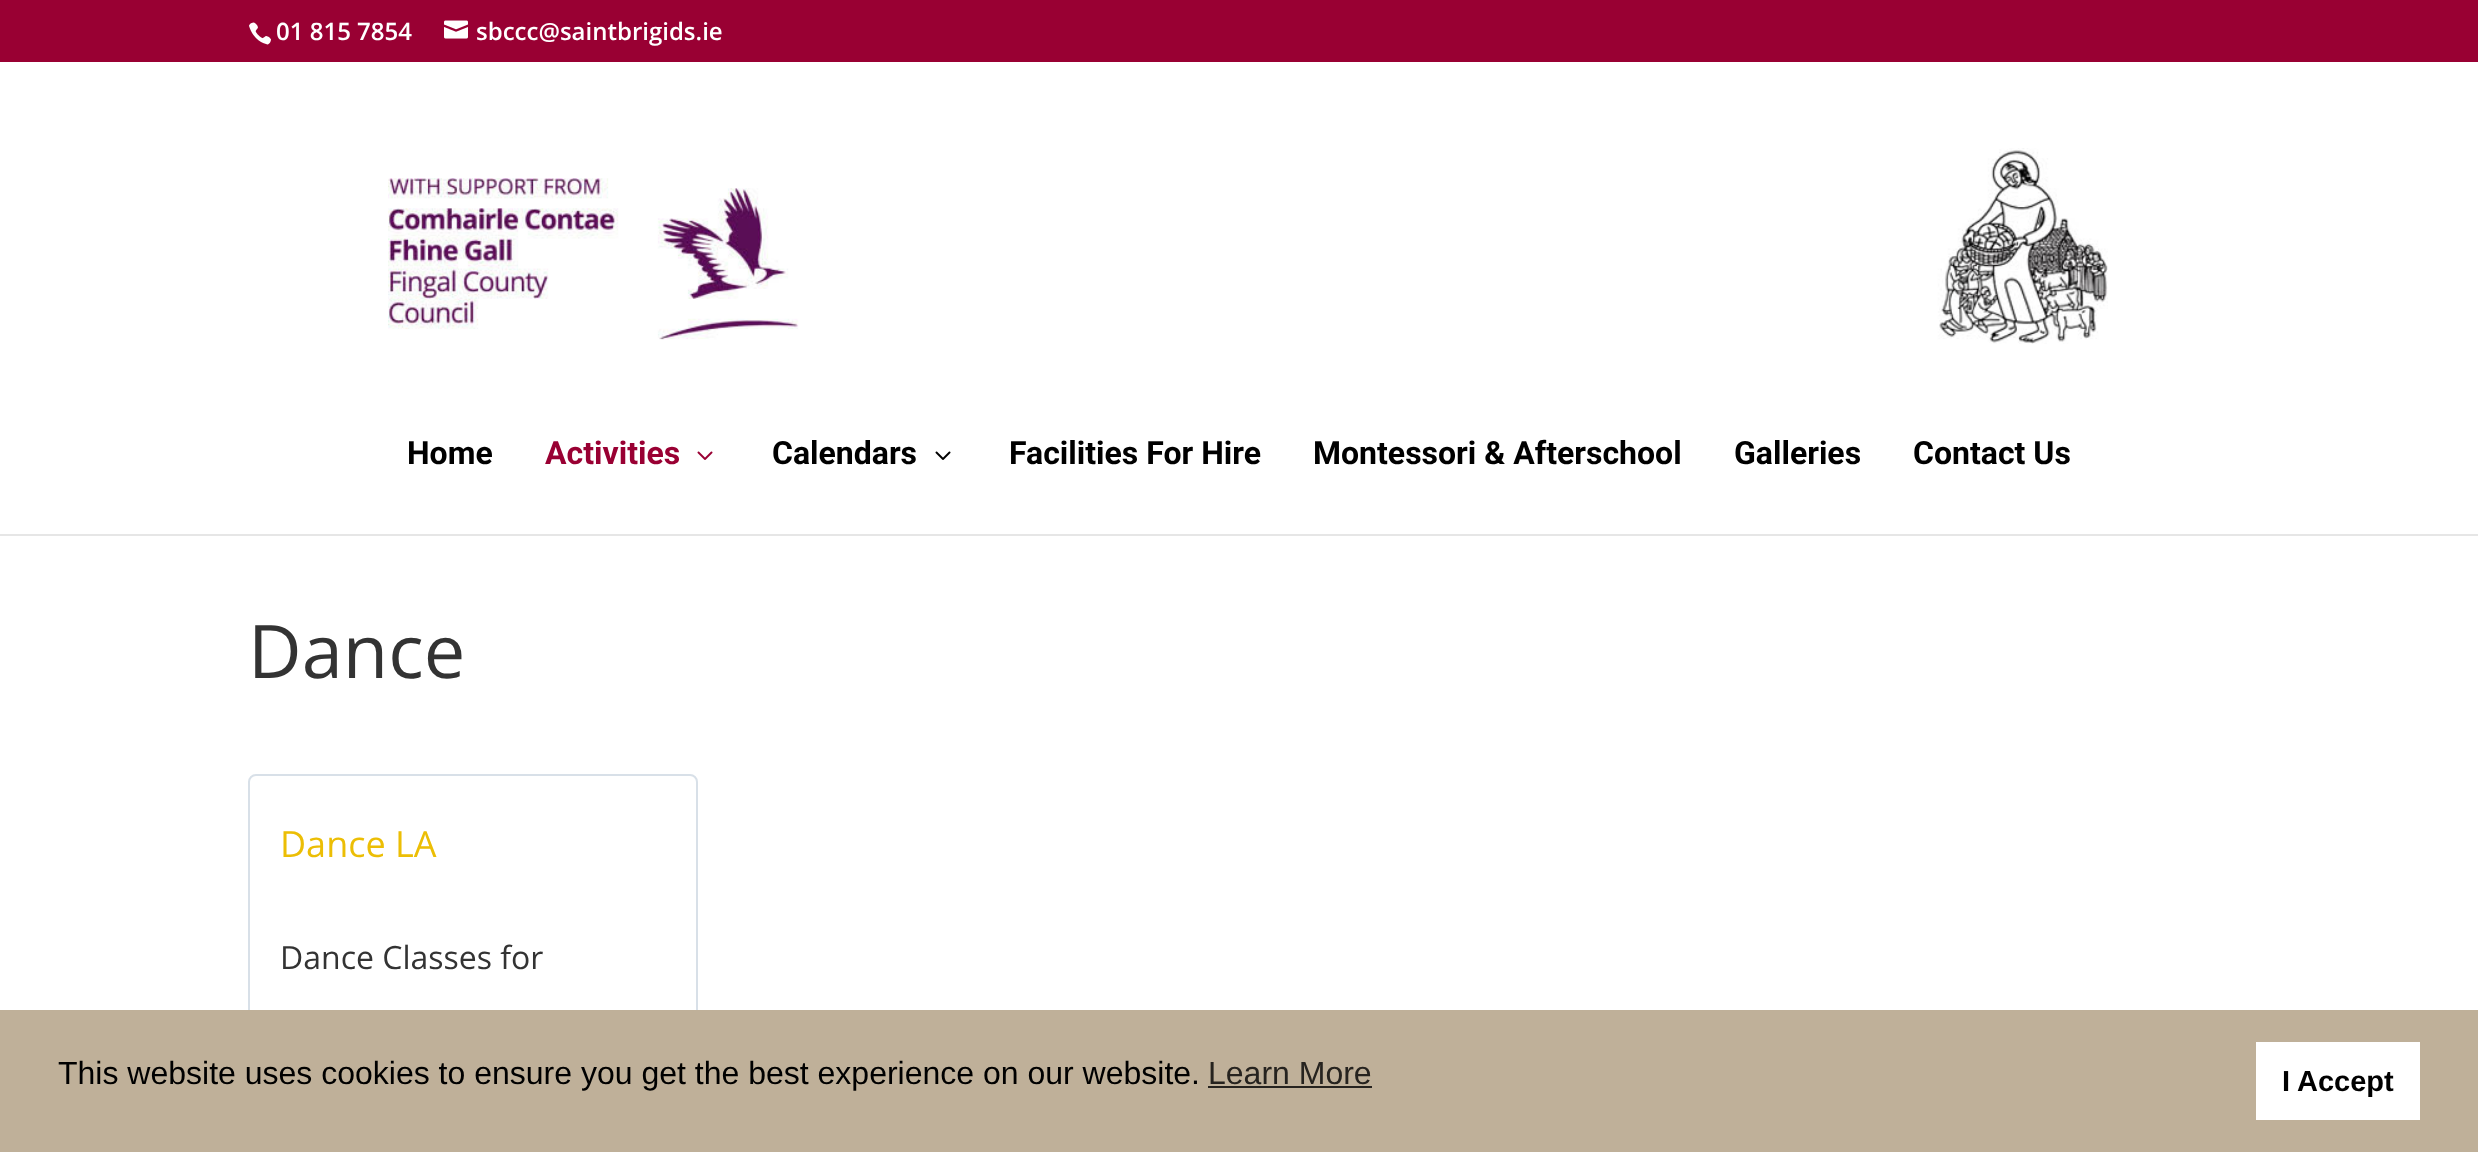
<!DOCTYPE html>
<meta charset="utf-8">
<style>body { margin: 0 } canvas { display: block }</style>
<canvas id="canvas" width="2478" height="1152"></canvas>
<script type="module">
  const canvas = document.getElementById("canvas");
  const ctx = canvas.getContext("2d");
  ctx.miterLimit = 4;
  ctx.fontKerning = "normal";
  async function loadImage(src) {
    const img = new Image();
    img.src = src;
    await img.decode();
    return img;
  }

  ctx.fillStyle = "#ffffff";
  ctx.fillRect(0, 0, 2478, 1152);
  ctx.fillStyle = "#990033";
  ctx.fillRect(0, 0, 2478, 62);
  ctx.drawImage(await loadImage("img1.png"), 249, 22, 22, 23);
  ctx.font = "600 24px Open Sans";
  ctx.fillStyle = "#ffffff";
  ctx.fillText("01 815 7854", 276, 40);
  ctx.drawImage(await loadImage("img2.png"), 444, 20, 24, 19);
  ctx.fillText("sbccc@saintbrigids.ie", 476, 40);
  ctx.fillStyle = "#e6e6e6";
  ctx.fillRect(0, 534, 2478, 2);
  ctx.drawImage(await loadImage("img3.png"), 388, 148, 1720, 196);
  ctx.font = "bold 32px Roboto";
  ctx.fillStyle = "#000000";
  ctx.fillText("Home", 407, 464);
  ctx.fillStyle = "#990033";
  ctx.fillText("Activities", 545, 464);
  ctx.drawImage(await loadImage("img4.png"), 697, 451, 16, 9);
  ctx.fillStyle = "#000000";
  ctx.fillText("Calendars", 772, 464);
  ctx.drawImage(await loadImage("img5.png"), 935, 451, 16, 9);
  ctx.fillText("Facilities For Hire", 1009, 464);
  ctx.fillText("Montessori & Afterschool", 1313, 464);
  ctx.fillText("Galleries", 1734, 464);
  ctx.fillText("Contact Us", 1913, 464);
  ctx.font = "74px Open Sans";
  ctx.fillStyle = "#333333";
  ctx.fillText("Dance", 248, 678);
  ctx.beginPath();
  ctx.roundRect(249, 775, 448, 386, 7);
  ctx.strokeStyle = "#d8e0e8";
  ctx.lineWidth = 2;
  ctx.stroke();
  ctx.font = "36px Open Sans";
  ctx.fillStyle = "#ecbe05";
  ctx.fillText("Dance LA", 280, 857);
  ctx.font = "32px Open Sans";
  ctx.fillStyle = "#333333";
  ctx.fillText("Dance Classes for", 280, 969);
  ctx.fillStyle = "#bfb099";
  ctx.fillRect(0, 1010, 2478, 142);
  ctx.font = "32px Liberation Sans";
  ctx.fillStyle = "#000000";
  ctx.fillText("This website uses cookies to ensure you get the best experience on our website.", 58, 1084);
  ctx.fillStyle = "#26231f";
  ctx.fillText("Learn More", 1208, 1084);
  ctx.fillRect(1208, 1086, 164, 2);
  ctx.fillStyle = "#ffffff";
  ctx.fillRect(2256, 1042, 164, 78);
  ctx.font = "bold 29px Liberation Sans";
  ctx.fillStyle = "#000000";
  ctx.fillText("I Accept", 2282, 1091);
</script>
